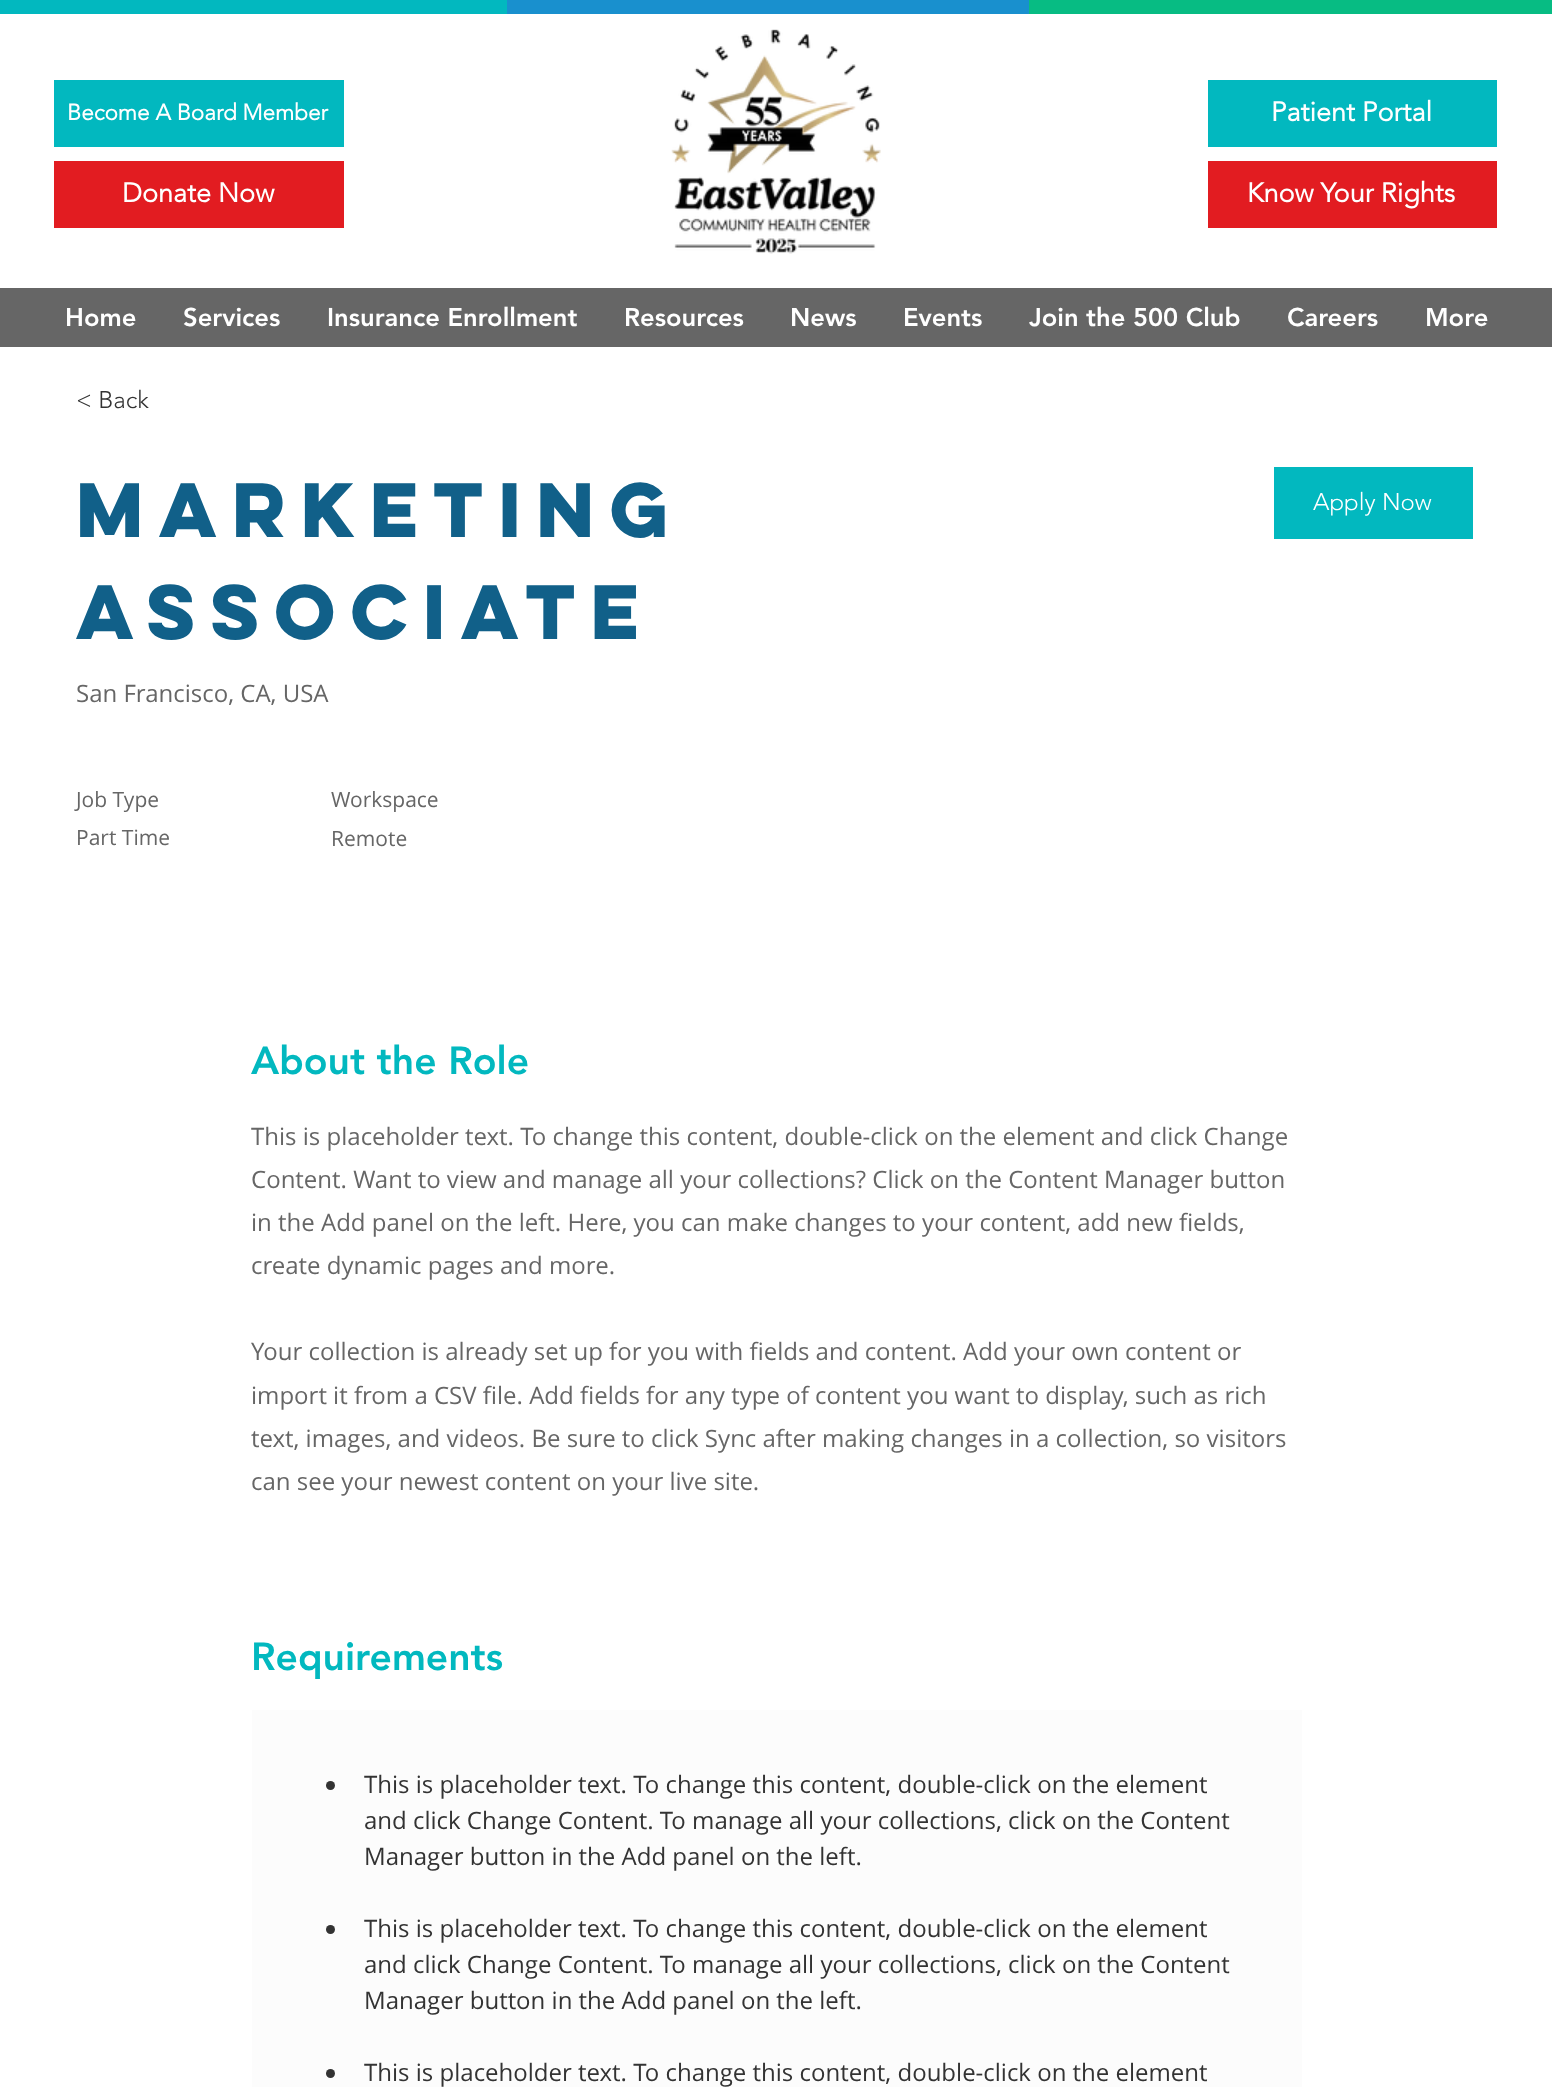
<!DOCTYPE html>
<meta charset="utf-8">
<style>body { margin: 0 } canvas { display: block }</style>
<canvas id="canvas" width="1552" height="2087"></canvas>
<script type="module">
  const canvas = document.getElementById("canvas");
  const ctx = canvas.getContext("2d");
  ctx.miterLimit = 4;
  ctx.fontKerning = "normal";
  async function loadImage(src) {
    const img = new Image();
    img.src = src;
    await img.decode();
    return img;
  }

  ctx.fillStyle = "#ffffff";
  ctx.fillRect(0, 0, 1552, 2087);
  ctx.fillStyle = "#02b8bf";
  ctx.fillRect(0, 0, 507, 14);
  ctx.fillStyle = "#1990ce";
  ctx.fillRect(507, 0, 522, 14);
  ctx.fillStyle = "#07bc83";
  ctx.fillRect(1029, 0, 523, 14);
  ctx.fillStyle = "#02b8bf";
  ctx.fillRect(54, 80, 290, 67);
  ctx.font = "bold 22.5px 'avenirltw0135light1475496'";
  ctx.fillStyle = "#ffffff";
  ctx.fillText("Become A Board Member", 67, 120);
  ctx.drawImage(await loadImage("img1.png"), 671, 29, 210, 225);
  ctx.fillStyle = "#02b8bf";
  ctx.fillRect(1208, 80, 289, 67);
  ctx.font = "bold 27px 'avenirltw0135light1475496'";
  ctx.fillStyle = "#ffffff";
  ctx.fillText("Patient Portal", 1271, 121);
  ctx.fillStyle = "#e21c21";
  ctx.fillRect(54, 161, 290, 67);
  ctx.fillStyle = "#ffffff";
  ctx.fillText("Donate Now", 122, 202);
  ctx.fillStyle = "#e21c21";
  ctx.fillRect(1208, 161, 289, 67);
  ctx.fillStyle = "#ffffff";
  ctx.fillText("Know Your Rights", 1247, 202);
  ctx.fillStyle = "#666666";
  ctx.fillRect(0, 288, 1552, 59);
  ctx.font = "900 25.5px 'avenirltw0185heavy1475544'";
  ctx.fillStyle = "#ffffff";
  ctx.fillText("Home", 65, 326);
  ctx.fillText("Services", 183, 326);
  ctx.fillText("Insurance Enrollment", 327, 326);
  ctx.fillText("Resources", 624, 326);
  ctx.fillText("News", 790, 326);
  ctx.fillText("Events", 903, 326);
  ctx.fillText("Join the 500 Club", 1029, 326);
  ctx.fillText("Careers", 1287, 326);
  ctx.fillText("More", 1425, 326);
  ctx.font = "300 24px 'avenirltw0135light1475496'";
  ctx.fillStyle = "#333333";
  ctx.fillText("< Back", 76, 408);
  ctx.font = "bold 69px 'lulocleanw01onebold'";
  ctx.fillStyle = "#116089";
  ctx.fillText("Marketing", 76, 537);
  ctx.fillText("Associate", 76, 639);
  ctx.fillStyle = "#02b8bf";
  ctx.fillRect(1274, 467, 199, 72);
  ctx.font = "300 24px 'avenirltw0135light1475496'";
  ctx.fillStyle = "#ffffff";
  ctx.fillText("Apply Now", 1313, 510);
  ctx.font = "24px Open Sans";
  ctx.fillStyle = "#666666";
  ctx.fillText("San Francisco, CA, USA", 76, 702);
  ctx.font = "21px Open Sans";
  ctx.fillText("Job Type", 76, 807);
  ctx.fillText("Workspace", 331, 807);
  ctx.fillText("Part Time", 76, 845);
  ctx.fillText("Remote", 331, 846);
  ctx.font = "900 39px 'avenirltw0185heavy1475544'";
  ctx.fillStyle = "#02b8bf";
  ctx.fillText("About the Role", 251, 1074);
  ctx.font = "24px Open Sans";
  ctx.fillStyle = "#666666";
  ctx.fillText("This is placeholder text. To change this content, double-click on the element and click Change", 251, 1145);
  ctx.fillText("Content. Want to view and manage all your collections? Click on the Content Manager button", 251, 1188);
  ctx.fillText("in the Add panel on the left. Here, you can make changes to your content, add new fields,", 251, 1231);
  ctx.fillText("create dynamic pages and more.", 251, 1274);
  ctx.fillText("Your collection is already set up for you with fields and content. Add your own content or", 251, 1360);
  ctx.fillText("import it from a CSV file. Add fields for any type of content you want to display, such as rich", 251, 1404);
  ctx.fillText("text, images, and videos. Be sure to click Sync after making changes in a collection, so visitors", 251, 1447);
  ctx.fillText("can see your newest content on your live site.", 251, 1490);
  ctx.font = "900 39px 'avenirltw0185heavy1475544'";
  ctx.fillStyle = "#02b8bf";
  ctx.fillText("Requirements", 251, 1670);
  ctx.fillStyle = "#fcfcfc";
  ctx.fillRect(252, 1710, 1050, 377);
  ctx.fillStyle = "#333333";
  ctx.beginPath();
  ctx.arc(330.5, 1785.5, 4.5, 0, Math.PI * 2);
  ctx.fill();
  ctx.font = "24px Open Sans";
  ctx.fillText("This is placeholder text. To change this content, double-click on the element", 364, 1793);
  ctx.fillText("and click Change Content. To manage all your collections, click on the Content", 364, 1829);
  ctx.fillText("Manager button in the Add panel on the left.", 364, 1865);
  ctx.beginPath();
  ctx.arc(330.5, 1929.5, 4.5, 0, Math.PI * 2);
  ctx.fill();
  ctx.fillText("This is placeholder text. To change this content, double-click on the element", 364, 1937);
  ctx.fillText("and click Change Content. To manage all your collections, click on the Content", 364, 1973);
  ctx.fillText("Manager button in the Add panel on the left.", 364, 2009);
  ctx.beginPath();
  ctx.arc(330.5, 2073.5, 4.5, 0, Math.PI * 2);
  ctx.fill();
  ctx.fillText("This is placeholder text. To change this content, double-click on the element", 364, 2081);
</script>
